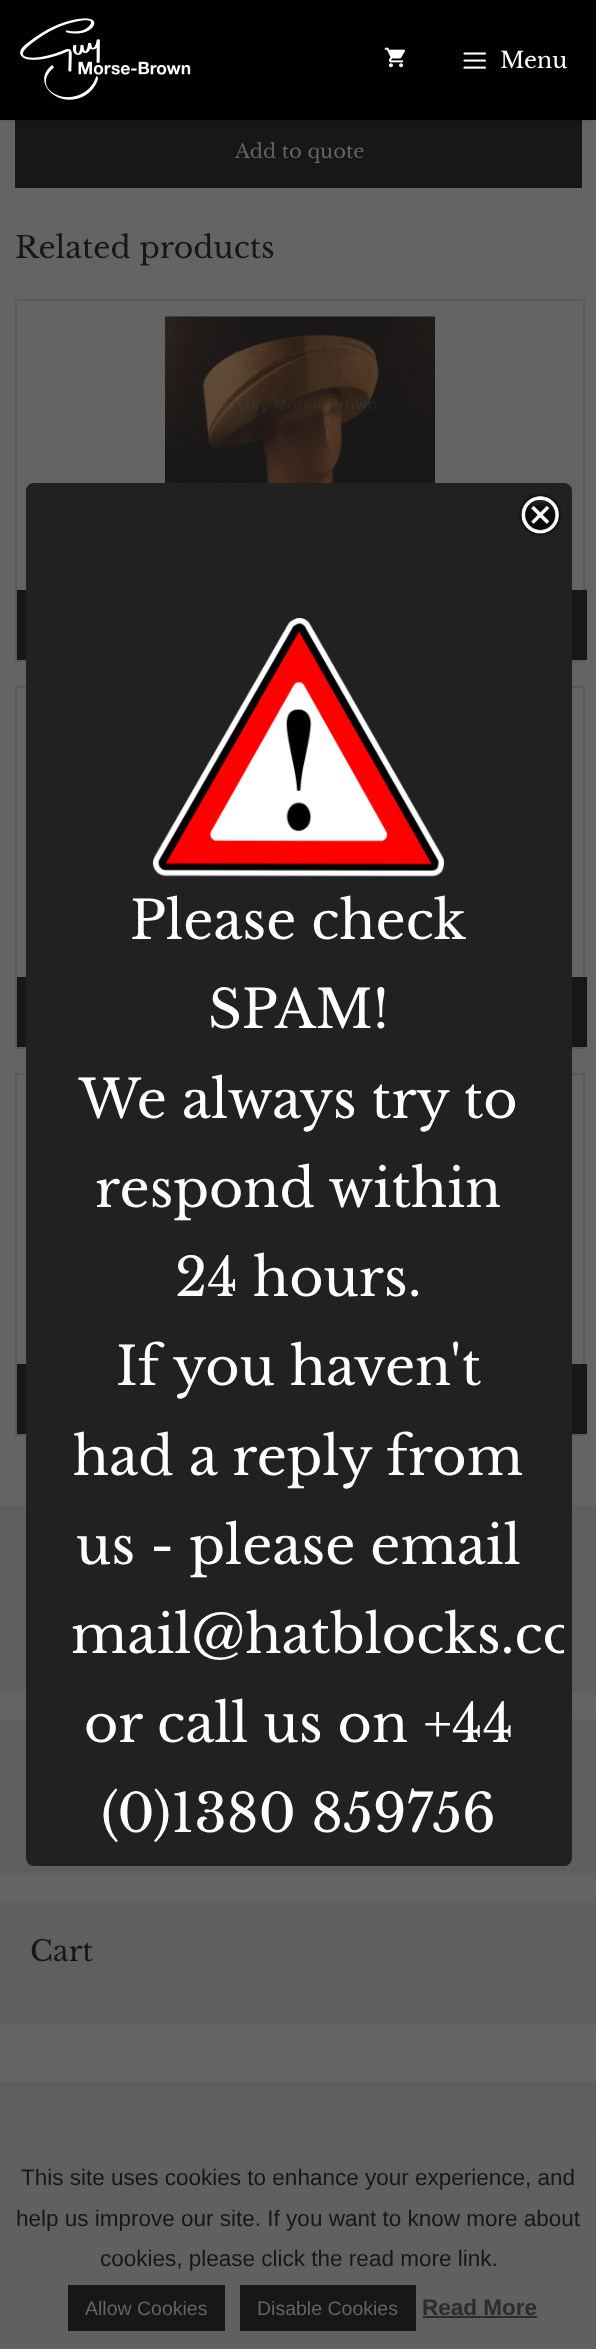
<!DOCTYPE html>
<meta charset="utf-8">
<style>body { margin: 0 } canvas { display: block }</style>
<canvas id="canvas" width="596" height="2349"></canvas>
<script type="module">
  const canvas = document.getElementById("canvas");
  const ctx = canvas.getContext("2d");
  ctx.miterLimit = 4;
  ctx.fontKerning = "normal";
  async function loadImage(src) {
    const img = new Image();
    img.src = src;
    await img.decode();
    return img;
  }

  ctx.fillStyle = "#646464";
  ctx.fillRect(0, 0, 596, 2349);
  ctx.fillStyle = "#171717";
  ctx.fillRect(15, 120, 567, 68);
  ctx.fillStyle = "rgba(0, 0, 0, 0.2)";
  ctx.filter = "blur(1.5px)";
  ctx.beginPath();
  ctx.rect(3, 6, 591, 114);
  ctx.fill();
  ctx.filter = "none";
  ctx.fillStyle = "#000000";
  ctx.fillRect(0, 0, 596, 120);
  ctx.drawImage(await loadImage("img1.png"), 20, 18, 171, 82);
  ctx.drawImage(await loadImage("img2.png"), 384, 47, 22, 21);
  ctx.drawImage(await loadImage("img3.png"), 463, 52, 23, 17);
  ctx.font = "22.5px Libre Baskerville";
  ctx.fillStyle = "#ffffff";
  ctx.fillText("Menu", 500, 68);
  ctx.font = "19.5px Libre Baskerville";
  ctx.fillStyle = "#646464";
  ctx.fillText("Add to quote", 235, 158);
  ctx.font = "30px Libre Baskerville";
  ctx.fillStyle = "#171717";
  ctx.fillText("Related products", 15, 258);
  ctx.strokeStyle = "#595959";
  ctx.lineWidth = 2;
  ctx.strokeRect(16, 300, 568, 361);
  ctx.drawImage(await loadImage("img4.png"), 165, 316, 270, 167);
  ctx.fillRect(17, 590, 570, 70);
  ctx.strokeRect(16, 687, 568, 361);
  ctx.fillRect(17, 977, 570, 70);
  ctx.strokeRect(16, 1074, 568, 361);
  ctx.fillRect(17, 1364, 570, 70);
  ctx.fillStyle = "#5f5f5f";
  ctx.fillRect(0, 1506, 596, 186);
  ctx.fillRect(0, 1719, 596, 155);
  ctx.fillRect(0, 1901, 596, 124);
  ctx.font = "28.5px Libre Baskerville";
  ctx.fillStyle = "#171717";
  ctx.fillText("Cart", 30, 1961);
  ctx.beginPath();
  ctx.roundRect(30, 487, 538, 1375, 4);
  ctx.strokeStyle = "#212121";
  ctx.lineWidth = 8;
  ctx.stroke();
  ctx.fillStyle = "#212121";
  ctx.fillRect(34, 491, 530, 1367);
  ctx.drawImage(await loadImage("img5.png"), 519, 494, 42, 42);
  ctx.drawImage(await loadImage("img6.png"), 153, 618, 291, 259);
  ctx.font = "52.5px Libre Baskerville";
  ctx.fillStyle = "#ffffff";
  ctx.fillText("Please check", 130, 939);
  ctx.fillText("SPAM!", 208, 1028);
  ctx.fillText("We always try to", 79, 1118);
  ctx.fillText("respond within", 95, 1207);
  ctx.fillText("24 hours.", 175, 1296);
  ctx.fillText("If you haven't", 116, 1385);
  ctx.fillText("had a reply from", 73, 1475);
  ctx.fillText("us - please email", 76, 1564);
  ctx.save();
  ctx.beginPath();
  ctx.rect(33, 491, 531, 1368);
  ctx.clip();
  ctx.fillText("mail@hatblocks.co", 71, 1653);
  ctx.restore();
  ctx.fillText("or call us on +44", 84, 1742);
  ctx.fillText("(0)1380 859756", 101, 1832);
  ctx.fillStyle = "#5f5f5f";
  ctx.fillRect(0, 2082, 596, 57);
  ctx.fillStyle = "#606060";
  ctx.fillRect(0, 2139, 596, 210);
  ctx.font = "22.5px Liberation Sans";
  ctx.fillStyle = "#171717";
  ctx.fillText("This site uses cookies to enhance your experience, and", 21, 2185);
  ctx.fillText("help us improve our site. If you want to know more about", 16, 2226);
  ctx.fillText("cookies, please click the read more link.", 100, 2266);
  ctx.fillRect(68, 2285, 157, 46);
  ctx.font = "19.5px Liberation Sans";
  ctx.fillStyle = "#646464";
  ctx.fillText("Allow Cookies", 85, 2315);
  ctx.fillStyle = "#171717";
  ctx.fillRect(240, 2285, 176, 46);
  ctx.fillStyle = "#646464";
  ctx.fillText("Disable Cookies", 257, 2315);
  ctx.font = "bold 22.5px Liberation Sans";
  ctx.fillStyle = "#2c2c2c";
  ctx.fillText("Read More", 422, 2315);
  ctx.fillRect(423, 2316, 114, 2);
</script>
